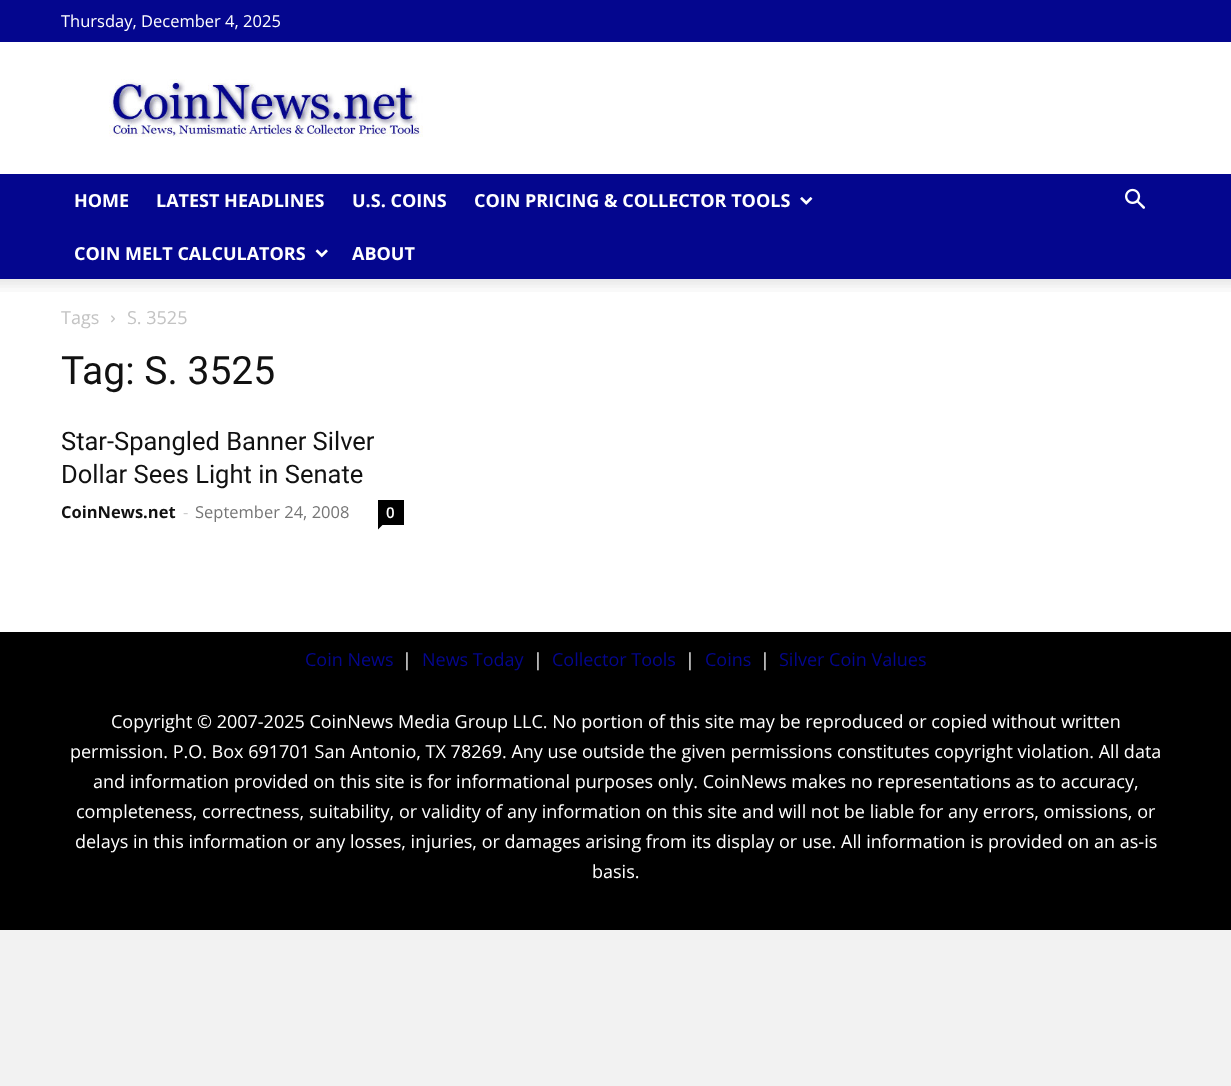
<!DOCTYPE html>
<meta charset="utf-8">
<style>body { margin: 0 } canvas { display: block }</style>
<canvas id="canvas" width="1231" height="1086"></canvas>
<script type="module">
  const canvas = document.getElementById("canvas");
  const ctx = canvas.getContext("2d");
  ctx.miterLimit = 4;
  ctx.fontKerning = "normal";
  async function loadImage(src) {
    const img = new Image();
    img.src = src;
    await img.decode();
    return img;
  }

  ctx.fillStyle = "#f2f2f2";
  ctx.fillRect(0, 0, 1231, 1086);
  ctx.fillStyle = "#04068e";
  ctx.fillRect(0, 0, 1231, 42);
  ctx.font = "16.5px Open Sans";
  ctx.fillStyle = "#ffffff";
  ctx.fillText("Thursday, December 4, 2025", 61, 27);
  ctx.fillRect(0, 42, 1231, 132);
  ctx.drawImage(await loadImage("img1.png"), 109, 79, 314, 58);
  ctx.fillStyle = "#04068e";
  ctx.fillRect(0, 174, 1231, 105);
  ctx.font = "bold 18px Open Sans";
  ctx.fillStyle = "#ffffff";
  ctx.fillText("HOME", 74, 207);
  ctx.fillText("LATEST HEADLINES", 156, 207);
  ctx.fillText("U.S. COINS", 352, 207);
  ctx.fillText("COIN PRICING & COLLECTOR TOOLS", 474, 207);
  ctx.drawImage(await loadImage("img2.png"), 800, 197, 13, 8);
  ctx.fillText("COIN MELT CALCULATORS", 74, 260);
  ctx.drawImage(await loadImage("img3.png"), 315, 249, 13, 9);
  ctx.fillText("ABOUT", 352, 260);
  ctx.drawImage(await loadImage("img4.png"), 1125, 188, 20, 21);
  ctx.fillRect(0, 279, 1231, 353);
  ctx.drawImage(await loadImage("img5.png"), 0, 279, 1231, 13);
  ctx.font = "18px Open Sans";
  ctx.fillStyle = "#c3c3c3";
  ctx.fillText("Tags", 61, 324);
  ctx.drawImage(await loadImage("img6.png"), 111, 315, 4, 8);
  ctx.fillText("S. 3525", 127, 324);
  ctx.font = "39px Roboto";
  ctx.fillStyle = "#111111";
  ctx.fillText("Tag: S. 3525", 61, 384);
  ctx.font = "25.5px Roboto";
  ctx.fillText("Star-Spangled Banner Silver", 61, 450);
  ctx.fillText("Dollar Sees Light in Senate", 61, 483);
  ctx.font = "bold 16.5px Open Sans";
  ctx.fillText("CoinNews.net", 61, 518);
  ctx.font = "16.5px Open Sans";
  ctx.fillStyle = "#cccccc";
  ctx.fillText("-", 183, 518);
  ctx.fillStyle = "#767676";
  ctx.fillText("September 24, 2008", 195, 518);
  ctx.fillStyle = "#000000";
  ctx.fillRect(378, 500, 26, 25);
  ctx.font = "600 15px Open Sans";
  ctx.fillStyle = "#ffffff";
  ctx.fillText("0", 386, 518);
  ctx.fillStyle = "#000000";
  ctx.beginPath();
  ctx.moveTo(378, 525);
  ctx.lineTo(382.5, 525);
  ctx.lineTo(378, 529.5);
  ctx.closePath();
  ctx.fill();
  ctx.fillRect(0, 632, 1231, 298);
  ctx.font = "18px Open Sans";
  ctx.fillStyle = "#04068e";
  ctx.fillText("Coin News", 305, 666);
  ctx.fillStyle = "#ffffff";
  ctx.fillText("|", 402, 666);
  ctx.fillStyle = "#04068e";
  ctx.fillText("News Today", 422, 666);
  ctx.fillStyle = "#ffffff";
  ctx.fillText("|", 533, 666);
  ctx.fillStyle = "#04068e";
  ctx.fillText("Collector Tools", 552, 666);
  ctx.fillStyle = "#ffffff";
  ctx.fillText("|", 685, 666);
  ctx.fillStyle = "#04068e";
  ctx.fillText("Coins", 705, 666);
  ctx.fillStyle = "#ffffff";
  ctx.fillText("|", 760, 666);
  ctx.fillStyle = "#04068e";
  ctx.fillText("Silver Coin Values", 779, 666);
  ctx.fillStyle = "#ffffff";
  ctx.fillText("Copyright © 2007-2025 CoinNews Media Group LLC. No portion of this site may be reproduced or copied without written", 111, 728);
  ctx.fillText("permission. P.O. Box 691701 San Antonio, TX 78269. Any use outside the given permissions constitutes copyright violation. All data", 70, 758);
  ctx.fillText("and information provided on this site is for informational purposes only. CoinNews makes no representations as to accuracy,", 93, 788);
  ctx.fillText("completeness, correctness, suitability, or validity of any information on this site and will not be liable for any errors, omissions, or", 76, 818);
  ctx.fillText("delays in this information or any losses, injuries, or damages arising from its display or use. All information is provided on an as-is", 75, 848);
  ctx.fillText("basis.", 592, 878);
</script>
